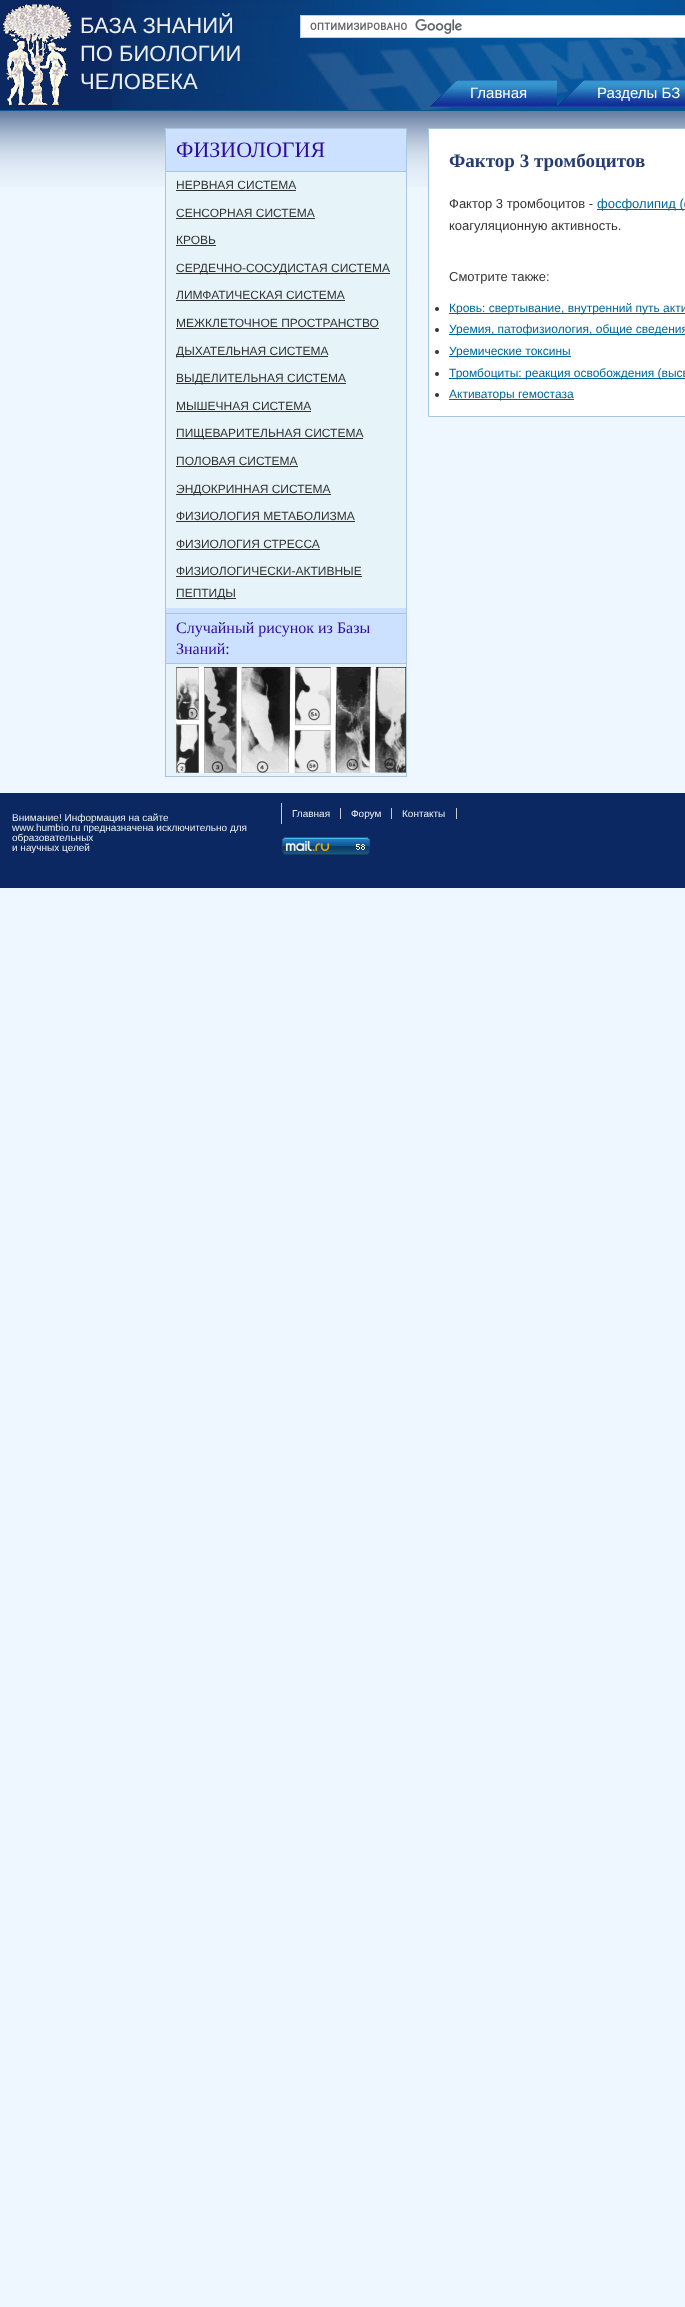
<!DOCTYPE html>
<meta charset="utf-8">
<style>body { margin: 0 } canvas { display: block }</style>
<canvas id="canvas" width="685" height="2307"></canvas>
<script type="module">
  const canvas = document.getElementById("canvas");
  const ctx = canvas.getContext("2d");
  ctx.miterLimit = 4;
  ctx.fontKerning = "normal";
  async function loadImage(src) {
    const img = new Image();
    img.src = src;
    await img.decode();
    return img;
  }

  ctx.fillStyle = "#eef7ff";
  ctx.fillRect(0, 0, 685, 2307);
  ctx.drawImage(await loadImage("img1.png"), 0, 110, 685, 77);
  ctx.fillStyle = "#0b2863";
  ctx.fillRect(0, 0, 112, 110);
  ctx.drawImage(await loadImage("img2.png"), 112, 0, 573, 110);
  ctx.drawImage(await loadImage("img3.png"), 3, 4, 69, 101);
  ctx.font = "22px Liberation Sans";
  ctx.fillStyle = "#eeeeee";
  ctx.fillText("БАЗА ЗНАНИЙ", 80, 33);
  ctx.fillText("ПО БИОЛОГИИ", 80, 61);
  ctx.fillText("ЧЕЛОВЕКА", 80, 89);
  ctx.fillStyle = "#ffffff";
  ctx.fillRect(301, 16, 384, 21);
  ctx.drawImage(await loadImage("img4.png"), 310, 19, 152, 15);
  ctx.strokeStyle = "#bccdf0";
  ctx.strokeRect(300.5, 15.5, 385, 22);
  ctx.drawImage(await loadImage("img5.png"), 430, 80, 127, 27);
  ctx.font = "15px Liberation Sans";
  ctx.fillText("Главная", 470, 98);
  ctx.drawImage(await loadImage("img6.png"), 557, 80, 128, 27);
  ctx.fillText("Разделы БЗ", 597, 98);
  ctx.fillStyle = "#cce0ff";
  ctx.fillRect(166, 129, 240, 534);
  ctx.strokeStyle = "#aac6df";
  ctx.strokeRect(165.5, 128.5, 241, 648);
  ctx.fillStyle = "#aac6df";
  ctx.fillRect(166, 171, 240, 1);
  ctx.font = "22px Liberation Serif";
  ctx.fillStyle = "#300c9c";
  ctx.fillText("ФИЗИОЛОГИЯ", 176, 157);
  ctx.fillStyle = "#e6f4f9";
  ctx.fillRect(166, 172, 240, 436);
  ctx.font = "12px Liberation Sans";
  ctx.fillStyle = "#333333";
  ctx.fillText("НЕРВНАЯ СИСТЕМА", 176, 189);
  ctx.fillRect(176, 190, 120, 1);
  ctx.fillText("СЕНСОРНАЯ СИСТЕМА", 176, 217);
  ctx.fillRect(176, 218, 139, 1);
  ctx.fillText("КРОВЬ", 176, 244);
  ctx.fillRect(176, 245, 40, 1);
  ctx.fillRect(176, 273, 214, 1);
  ctx.fillText("СЕРДЕЧНО-СОСУДИСТАЯ СИСТЕМА", 176, 272);
  ctx.fillText("ЛИМФАТИЧЕСКАЯ СИСТЕМА", 176, 299);
  ctx.fillRect(176, 300, 169, 1);
  ctx.fillText("МЕЖКЛЕТОЧНОЕ ПРОСТРАНСТВО", 176, 327);
  ctx.fillRect(176, 328, 203, 1);
  ctx.fillRect(176, 356, 152, 1);
  ctx.fillText("ДЫХАТЕЛЬНАЯ СИСТЕМА", 176, 355);
  ctx.fillRect(176, 383, 170, 1);
  ctx.fillText("ВЫДЕЛИТЕЛЬНАЯ СИСТЕМА", 176, 382);
  ctx.fillText("МЫШЕЧНАЯ СИСТЕМА", 176, 410);
  ctx.fillRect(176, 411, 135, 1);
  ctx.fillRect(176, 438, 187, 1);
  ctx.fillText("ПИЩЕВАРИТЕЛЬНАЯ СИСТЕМА", 176, 437);
  ctx.fillText("ПОЛОВАЯ СИСТЕМА", 176, 465);
  ctx.fillRect(176, 466, 122, 1);
  ctx.fillRect(176, 494, 155, 1);
  ctx.fillText("ЭНДОКРИННАЯ СИСТЕМА", 176, 493);
  ctx.fillText("ФИЗИОЛОГИЯ МЕТАБОЛИЗМА", 176, 520);
  ctx.fillRect(176, 521, 179, 1);
  ctx.fillText("ФИЗИОЛОГИЯ СТРЕССА", 176, 548);
  ctx.fillRect(176, 549, 144, 1);
  ctx.fillText("ФИЗИОЛОГИЧЕСКИ-АКТИВНЫЕ", 176, 575);
  ctx.fillRect(176, 576, 186, 1);
  ctx.fillRect(176, 598, 60, 1);
  ctx.fillText("ПЕПТИДЫ", 176, 597);
  ctx.fillStyle = "#aac6df";
  ctx.fillRect(166, 613, 240, 1);
  ctx.fillRect(166, 663, 240, 1);
  ctx.font = "16px Liberation Serif";
  ctx.fillStyle = "#300c9c";
  ctx.fillText("Случайный рисунок из Базы", 176, 633);
  ctx.fillText("Знаний:", 176, 654);
  ctx.fillStyle = "#e6f4f9";
  ctx.fillRect(166, 664, 240, 112);
  ctx.drawImage(await loadImage("img7.png"), 176, 667, 230, 106);
  ctx.fillStyle = "#ffffff";
  ctx.beginPath();
  ctx.rect(428.5, 128.5, 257, 288);
  ctx.fill();
  ctx.stroke();
  ctx.font = "bold 19px Liberation Serif";
  ctx.fillStyle = "#273c70";
  ctx.fillText("Фактор 3 тромбоцитов", 449, 167);
  ctx.font = "13px Liberation Sans";
  ctx.fillStyle = "#333333";
  ctx.fillText("Фактор 3 тромбоцитов -", 449, 208);
  ctx.fillStyle = "#006699";
  ctx.fillRect(597, 209, 88, 1);
  ctx.fillText("фосфолипид (ф", 597, 208);
  ctx.fillStyle = "#333333";
  ctx.fillText("коагуляционную активность.", 449, 230);
  ctx.fillText("Смотрите также:", 449, 281);
  ctx.beginPath();
  ctx.arc(437, 309, 2, 0, Math.PI * 2);
  ctx.fill();
  ctx.fillStyle = "#006699";
  ctx.fillRect(449, 313, 236, 1);
  ctx.font = "12px Liberation Sans";
  ctx.fillText("Кровь: свертывание, внутренний путь акти", 449, 312);
  ctx.fillStyle = "#333333";
  ctx.beginPath();
  ctx.arc(437, 330, 2, 0, Math.PI * 2);
  ctx.fill();
  ctx.fillStyle = "#006699";
  ctx.fillRect(449, 334, 236, 1);
  ctx.fillText("Уремия, патофизиология, общие сведения", 449, 333);
  ctx.fillStyle = "#333333";
  ctx.beginPath();
  ctx.arc(437, 352, 2, 0, Math.PI * 2);
  ctx.fill();
  ctx.fillStyle = "#006699";
  ctx.fillRect(449, 356, 122, 1);
  ctx.fillText("Уремические токсины", 449, 355);
  ctx.fillStyle = "#333333";
  ctx.beginPath();
  ctx.arc(437, 374, 2, 0, Math.PI * 2);
  ctx.fill();
  ctx.fillStyle = "#006699";
  ctx.fillRect(449, 378, 236, 1);
  ctx.fillText("Тромбоциты: реакция освобождения (высв", 449, 377);
  ctx.fillStyle = "#333333";
  ctx.beginPath();
  ctx.arc(437, 395, 2, 0, Math.PI * 2);
  ctx.fill();
  ctx.fillStyle = "#006699";
  ctx.fillRect(449, 399, 125, 1);
  ctx.fillText("Активаторы гемостаза", 449, 398);
  ctx.fillStyle = "#0b2863";
  ctx.fillRect(0, 793, 685, 95);
  ctx.font = "10px Liberation Sans";
  ctx.fillStyle = "#eeeeee";
  ctx.fillText("Внимание! Информация на сайте", 12, 821);
  ctx.fillText("www.humbio.ru предназначена исключительно для", 12, 831);
  ctx.fillText("образовательных", 12, 841);
  ctx.fillText("и научных целей", 12, 851);
  ctx.fillStyle = "#cccccc";
  ctx.fillRect(281, 803, 1, 21);
  ctx.fillStyle = "#eeeeee";
  ctx.fillText("Главная", 292, 817);
  ctx.fillStyle = "#cccccc";
  ctx.fillRect(340, 808, 1, 11);
  ctx.fillStyle = "#eeeeee";
  ctx.fillText("Форум", 351, 817);
  ctx.fillStyle = "#cccccc";
  ctx.fillRect(391, 808, 1, 11);
  ctx.fillStyle = "#eeeeee";
  ctx.fillText("Контакты", 402, 817);
  ctx.fillStyle = "#cccccc";
  ctx.fillRect(456, 808, 1, 11);
  ctx.drawImage(await loadImage("img8.png"), 282, 837, 88, 18);
</script>
